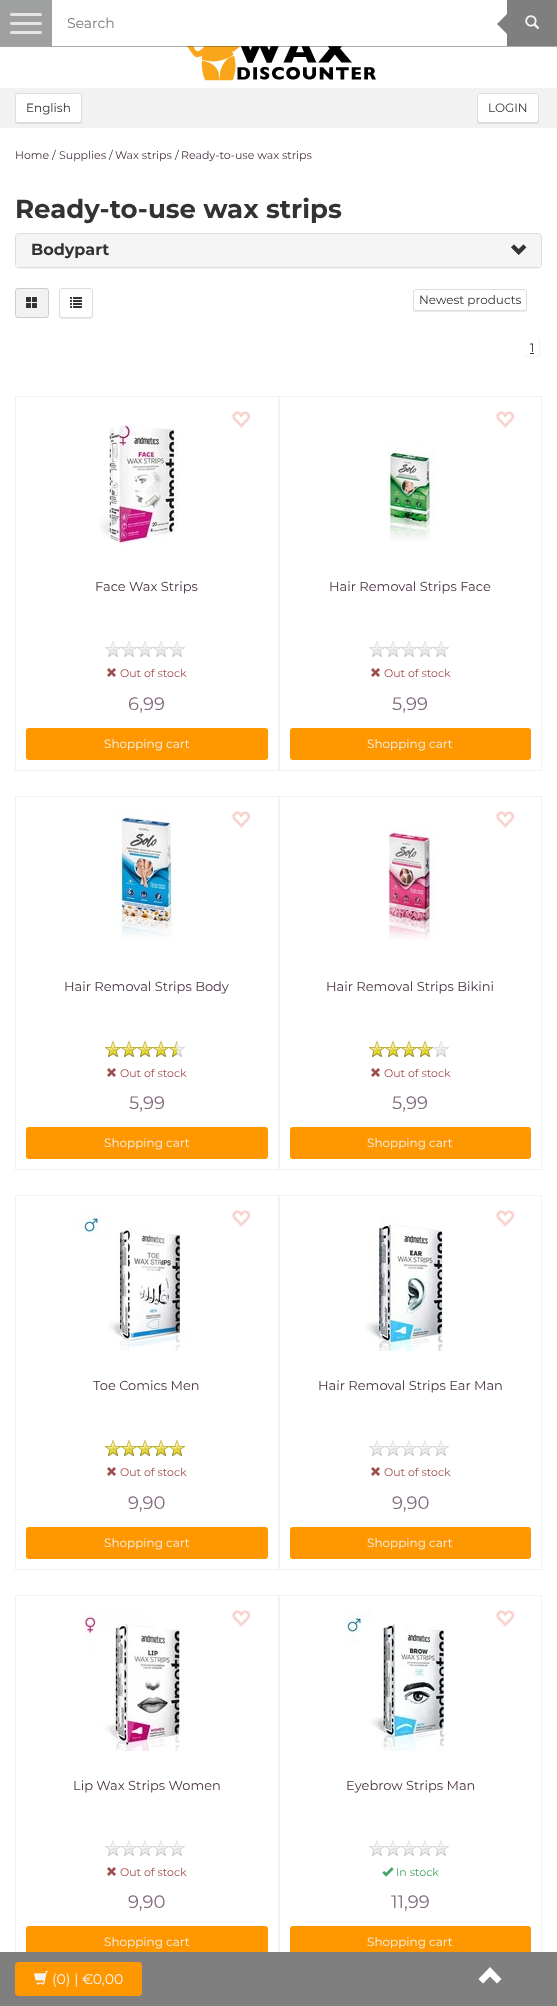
<!DOCTYPE html>
<meta charset="utf-8">
<style>body { margin: 0 } canvas { display: block }</style>
<canvas id="canvas" width="557" height="2006"></canvas>
<script type="module">
  const canvas = document.getElementById("canvas");
  const ctx = canvas.getContext("2d");
  ctx.miterLimit = 4;
  ctx.fontKerning = "normal";
  async function loadImage(src) {
    const img = new Image();
    img.src = src;
    await img.decode();
    return img;
  }

  ctx.fillStyle = "#ffffff";
  ctx.fillRect(0, 0, 557, 2006);
  ctx.drawImage(await loadImage("img2.png"), 187, 46, 189, 35);
  ctx.fillStyle = "rgba(0, 0, 0, 0.2)";
  ctx.filter = "blur(0.5px)";
  ctx.beginPath();
  ctx.rect(0, 1, 557, 46);
  ctx.fill();
  ctx.filter = "none";
  ctx.filter = "blur(0.5px)";
  ctx.beginPath();
  ctx.rect(0, 1, 557, 46);
  ctx.fill();
  ctx.filter = "none";
  ctx.fillStyle = "#9fa0a0";
  ctx.fillRect(0, 0, 52, 46);
  ctx.fillStyle = "#e5e5e5";
  ctx.beginPath();
  ctx.roundRect(10, 13, 32, 3, 1.5);
  ctx.fill();
  ctx.beginPath();
  ctx.roundRect(10, 22, 32, 3, 1.5);
  ctx.fill();
  ctx.beginPath();
  ctx.roundRect(10, 31, 32, 3, 1.5);
  ctx.fill();
  ctx.fillStyle = "rgba(255, 255, 255, 0.1)";
  ctx.fillRect(52, 46, 505, 1);
  ctx.fillStyle = "#ffffff";
  ctx.fillRect(52, 0, 455, 46);
  ctx.font = "14px Montserrat";
  ctx.fillStyle = "#777777";
  ctx.fillText("Search", 67, 28);
  ctx.fillStyle = "#7f7f7f";
  ctx.fillRect(507, 0, 50, 46);
  ctx.beginPath();
  ctx.moveTo(508, 13);
  ctx.lineTo(508, 35);
  ctx.lineTo(497, 24);
  ctx.closePath();
  ctx.fill();
  ctx.drawImage(await loadImage("img1.png"), 525, 15, 15, 15);
  ctx.fillStyle = "#f2f2f2";
  ctx.fillRect(0, 88, 557, 40);
  ctx.fillStyle = "rgba(34, 25, 25, 0.1)";
  ctx.filter = "blur(0.5px)";
  ctx.beginPath();
  ctx.roundRect(15, 94, 67, 30, 3);
  ctx.fill();
  ctx.filter = "none";
  ctx.fillStyle = "#ffffff";
  ctx.beginPath();
  ctx.roundRect(15.5, 93.5, 66, 29, 2.5);
  ctx.fill();
  ctx.strokeStyle = "#dddddd";
  ctx.stroke();
  ctx.font = "12px Montserrat";
  ctx.fillStyle = "#333333";
  ctx.fillText("English", 26, 112);
  ctx.fillStyle = "rgba(34, 25, 25, 0.1)";
  ctx.filter = "blur(0.5px)";
  ctx.beginPath();
  ctx.roundRect(477, 94, 62, 30, 3);
  ctx.fill();
  ctx.filter = "none";
  ctx.fillStyle = "#ffffff";
  ctx.beginPath();
  ctx.roundRect(477.5, 93.5, 61, 29, 2.5);
  ctx.fill();
  ctx.stroke();
  ctx.fillStyle = "#333333";
  ctx.fillText("LOGIN", 488, 112);
  ctx.font = "11px Montserrat";
  ctx.fillStyle = "#4b3343";
  ctx.fillText("Home", 15, 159);
  ctx.fillStyle = "#333333";
  ctx.fillText("/", 52, 159);
  ctx.fillStyle = "#4b3343";
  ctx.fillText("Supplies", 59, 159);
  ctx.fillStyle = "#333333";
  ctx.fillText("/", 109, 159);
  ctx.fillStyle = "#4b3343";
  ctx.fillText("Wax strips", 115, 159);
  ctx.fillStyle = "#333333";
  ctx.fillText("/", 175, 159);
  ctx.fillStyle = "#4b3343";
  ctx.fillText("Ready-to-use wax strips", 181, 159);
  ctx.font = "bold 26px Montserrat";
  ctx.fillStyle = "#333333";
  ctx.fillText("Ready-to-use wax strips", 15, 218);
  ctx.fillStyle = "rgba(0, 0, 0, 0.05)";
  ctx.filter = "blur(0.5px)";
  ctx.beginPath();
  ctx.roundRect(15, 234, 527, 35, 4);
  ctx.fill();
  ctx.filter = "none";
  ctx.beginPath();
  ctx.roundRect(15.5, 233.5, 526, 34, 3.5);
  ctx.stroke();
  ctx.fillStyle = "#f5f5f5";
  ctx.beginPath();
  ctx.roundRect(16, 234, 525, 33, [3, 3, 0, 0]);
  ctx.fill();
  ctx.font = "bold 16px Montserrat";
  ctx.fillStyle = "#333333";
  ctx.fillText("Bodypart", 31, 255);
  ctx.drawImage(await loadImage("img3.png"), 511, 244, 16, 11);
  ctx.fillStyle = "#f2f2f2";
  ctx.beginPath();
  ctx.roundRect(15.5, 288.5, 33, 29, 2.5);
  ctx.fill();
  ctx.strokeStyle = "#cccccc";
  ctx.stroke();
  ctx.drawImage(await loadImage("img4.png"), 26, 297, 11, 11);
  ctx.fillStyle = "rgba(34, 25, 25, 0.1)";
  ctx.filter = "blur(0.5px)";
  ctx.beginPath();
  ctx.roundRect(59, 289, 34, 30, 3);
  ctx.fill();
  ctx.filter = "none";
  ctx.fillStyle = "#ffffff";
  ctx.beginPath();
  ctx.roundRect(59.5, 288.5, 33, 29, 2.5);
  ctx.fill();
  ctx.strokeStyle = "#dddddd";
  ctx.stroke();
  ctx.drawImage(await loadImage("img5.png"), 70, 297, 12, 11);
  ctx.fillStyle = "rgba(34, 25, 25, 0.1)";
  ctx.filter = "blur(0.5px)";
  ctx.beginPath();
  ctx.roundRect(413, 290, 114, 22, 3);
  ctx.fill();
  ctx.filter = "none";
  ctx.fillStyle = "#ffffff";
  ctx.beginPath();
  ctx.roundRect(413.5, 289.5, 113, 21, 2.5);
  ctx.fill();
  ctx.stroke();
  ctx.font = "12px Montserrat";
  ctx.fillStyle = "#333333";
  ctx.fillText("Newest products", 419, 304);
  ctx.beginPath();
  ctx.moveTo(539, 338);
  ctx.bezierCurveTo(540, 339.5, 539.5, 345, 539.5, 347);
  ctx.bezierCurveTo(539.5, 356.5, 541, 356.5, 532, 356.5);
  ctx.bezierCurveTo(530.5, 356.5, 526.5, 357, 525, 356);
  ctx.strokeStyle = "#f1f1f1";
  ctx.stroke();
  ctx.fillText("1", 530, 352);
  ctx.fillRect(530, 353, 4, 1);
  ctx.strokeStyle = "#f2f2f2";
  ctx.strokeRect(15.5, 396.5, 263, 374);
  ctx.drawImage(await loadImage("img6.png"), 232, 411, 19, 17);
  ctx.drawImage(await loadImage("img7.png"), 99, 422, 79, 124);
  ctx.font = "13px Montserrat";
  ctx.fillStyle = "#4b3343";
  ctx.fillText("Face Wax Strips", 95, 591);
  ctx.drawImage(await loadImage("img8.png"), 105, 641, 80, 16);
  ctx.drawImage(await loadImage("img9.png"), 107, 668, 9, 9);
  ctx.font = "11px Montserrat";
  ctx.fillStyle = "#a35050";
  ctx.fillText("Out of stock", 120, 677);
  ctx.font = "18px Montserrat";
  ctx.fillStyle = "#806b7c";
  ctx.fillText("6,99", 128, 710);
  ctx.fillStyle = "#ff9800";
  ctx.beginPath();
  ctx.roundRect(26, 728, 242, 32, 3);
  ctx.fill();
  ctx.font = "12px Montserrat";
  ctx.fillStyle = "#f3f3f3";
  ctx.fillText("Shopping cart", 104, 748);
  ctx.strokeRect(279.5, 396.5, 262, 374);
  ctx.drawImage(await loadImage("img6.png"), 496, 411, 19, 17);
  ctx.drawImage(await loadImage("img10.png"), 388, 444, 48, 97);
  ctx.font = "13px Montserrat";
  ctx.fillStyle = "#4b3343";
  ctx.fillText("Hair Removal Strips Face", 329, 591);
  ctx.drawImage(await loadImage("img8.png"), 369, 641, 80, 16);
  ctx.drawImage(await loadImage("img9.png"), 371, 668, 9, 9);
  ctx.font = "11px Montserrat";
  ctx.fillStyle = "#a35050";
  ctx.fillText("Out of stock", 384, 677);
  ctx.font = "18px Montserrat";
  ctx.fillStyle = "#806b7c";
  ctx.fillText("5,99", 392, 710);
  ctx.fillStyle = "#ff9800";
  ctx.beginPath();
  ctx.roundRect(290, 728, 241, 32, 3);
  ctx.fill();
  ctx.font = "12px Montserrat";
  ctx.fillStyle = "#f3f3f3";
  ctx.fillText("Shopping cart", 367, 748);
  ctx.strokeRect(15.5, 796.5, 263, 373);
  ctx.drawImage(await loadImage("img11.png"), 111, 812, 63, 128);
  ctx.drawImage(await loadImage("img6.png"), 232, 811, 19, 17);
  ctx.font = "13px Montserrat";
  ctx.fillStyle = "#4b3343";
  ctx.fillText("Hair Removal Strips Body", 64, 991);
  ctx.drawImage(await loadImage("img8.png"), 105, 1041, 80, 16);
  ctx.drawImage(await loadImage("img12.png"), 105, 1041, 72, 16);
  ctx.drawImage(await loadImage("img9.png"), 107, 1068, 9, 9);
  ctx.font = "11px Montserrat";
  ctx.fillStyle = "#a35050";
  ctx.fillText("Out of stock", 120, 1077);
  ctx.font = "18px Montserrat";
  ctx.fillStyle = "#806b7c";
  ctx.fillText("5,99", 129, 1109);
  ctx.fillStyle = "#ff9800";
  ctx.beginPath();
  ctx.roundRect(26, 1127, 242, 32, 3);
  ctx.fill();
  ctx.font = "12px Montserrat";
  ctx.fillStyle = "#f3f3f3";
  ctx.fillText("Shopping cart", 104, 1147);
  ctx.strokeRect(279.5, 796.5, 262, 373);
  ctx.drawImage(await loadImage("img6.png"), 496, 811, 19, 17);
  ctx.drawImage(await loadImage("img13.png"), 387, 828, 49, 112);
  ctx.font = "13px Montserrat";
  ctx.fillStyle = "#4b3343";
  ctx.fillText("Hair Removal Strips Bikini", 326, 991);
  ctx.drawImage(await loadImage("img8.png"), 369, 1041, 80, 16);
  ctx.drawImage(await loadImage("img14.png"), 369, 1041, 64, 16);
  ctx.drawImage(await loadImage("img9.png"), 371, 1068, 9, 9);
  ctx.font = "11px Montserrat";
  ctx.fillStyle = "#a35050";
  ctx.fillText("Out of stock", 384, 1077);
  ctx.font = "18px Montserrat";
  ctx.fillStyle = "#806b7c";
  ctx.fillText("5,99", 392, 1109);
  ctx.fillStyle = "#ff9800";
  ctx.beginPath();
  ctx.roundRect(290, 1127, 241, 32, 3);
  ctx.fill();
  ctx.font = "12px Montserrat";
  ctx.fillStyle = "#f3f3f3";
  ctx.fillText("Shopping cart", 367, 1147);
  ctx.strokeRect(15.5, 1195.5, 263, 374);
  ctx.drawImage(await loadImage("img15.png"), 77, 1211, 112, 140);
  ctx.drawImage(await loadImage("img6.png"), 232, 1210, 19, 17);
  ctx.font = "13px Montserrat";
  ctx.fillStyle = "#4b3343";
  ctx.fillText("Toe Comics Men", 93, 1390);
  ctx.drawImage(await loadImage("img8.png"), 105, 1440, 80, 16);
  ctx.drawImage(await loadImage("img16.png"), 105, 1440, 80, 16);
  ctx.drawImage(await loadImage("img9.png"), 107, 1467, 9, 9);
  ctx.font = "11px Montserrat";
  ctx.fillStyle = "#a35050";
  ctx.fillText("Out of stock", 120, 1476);
  ctx.font = "18px Montserrat";
  ctx.fillStyle = "#806b7c";
  ctx.fillText("9,90", 128, 1509);
  ctx.fillStyle = "#ff9800";
  ctx.beginPath();
  ctx.roundRect(26, 1527, 242, 32, 3);
  ctx.fill();
  ctx.font = "12px Montserrat";
  ctx.fillStyle = "#f3f3f3";
  ctx.fillText("Shopping cart", 104, 1547);
  ctx.strokeRect(279.5, 1195.5, 262, 374);
  ctx.drawImage(await loadImage("img17.png"), 365, 1219, 79, 132);
  ctx.drawImage(await loadImage("img6.png"), 496, 1210, 19, 17);
  ctx.font = "13px Montserrat";
  ctx.fillStyle = "#4b3343";
  ctx.fillText("Hair Removal Strips Ear Man", 318, 1390);
  ctx.drawImage(await loadImage("img8.png"), 369, 1440, 80, 16);
  ctx.drawImage(await loadImage("img9.png"), 371, 1467, 9, 9);
  ctx.font = "11px Montserrat";
  ctx.fillStyle = "#a35050";
  ctx.fillText("Out of stock", 384, 1476);
  ctx.font = "18px Montserrat";
  ctx.fillStyle = "#806b7c";
  ctx.fillText("9,90", 392, 1509);
  ctx.fillStyle = "#ff9800";
  ctx.beginPath();
  ctx.roundRect(290, 1527, 241, 32, 3);
  ctx.fill();
  ctx.font = "12px Montserrat";
  ctx.fillStyle = "#f3f3f3";
  ctx.fillText("Shopping cart", 367, 1547);
  ctx.strokeRect(15.5, 1595.5, 263, 373);
  ctx.drawImage(await loadImage("img18.png"), 84, 1611, 97, 140);
  ctx.drawImage(await loadImage("img6.png"), 232, 1610, 19, 17);
  ctx.font = "13px Montserrat";
  ctx.fillStyle = "#4b3343";
  ctx.fillText("Lip Wax Strips Women", 73, 1790);
  ctx.drawImage(await loadImage("img8.png"), 105, 1840, 80, 16);
  ctx.drawImage(await loadImage("img9.png"), 107, 1867, 9, 9);
  ctx.font = "11px Montserrat";
  ctx.fillStyle = "#a35050";
  ctx.fillText("Out of stock", 120, 1876);
  ctx.font = "18px Montserrat";
  ctx.fillStyle = "#806b7c";
  ctx.fillText("9,90", 128, 1908);
  ctx.fillStyle = "#ff9800";
  ctx.beginPath();
  ctx.roundRect(26, 1926, 242, 32, 3);
  ctx.fill();
  ctx.font = "12px Montserrat";
  ctx.fillStyle = "#f3f3f3";
  ctx.fillText("Shopping cart", 104, 1946);
  ctx.strokeRect(279.5, 1595.5, 262, 373);
  ctx.drawImage(await loadImage("img19.png"), 344, 1611, 100, 140);
  ctx.drawImage(await loadImage("img6.png"), 496, 1610, 19, 17);
  ctx.font = "13px Montserrat";
  ctx.fillStyle = "#4b3343";
  ctx.fillText("Eyebrow Strips Man", 346, 1790);
  ctx.drawImage(await loadImage("img8.png"), 369, 1840, 80, 16);
  ctx.drawImage(await loadImage("img20.png"), 382, 1867, 12, 10);
  ctx.font = "11px Montserrat";
  ctx.fillStyle = "#44a363";
  ctx.fillText("In stock", 396, 1876);
  ctx.font = "18px Montserrat";
  ctx.fillStyle = "#806b7c";
  ctx.fillText("11,99", 391, 1908);
  ctx.fillStyle = "#ff9800";
  ctx.beginPath();
  ctx.roundRect(290, 1926, 241, 32, 3);
  ctx.fill();
  ctx.font = "12px Montserrat";
  ctx.fillStyle = "#f3f3f3";
  ctx.fillText("Shopping cart", 367, 1946);
  ctx.fillStyle = "#7f7f7f";
  ctx.fillRect(0, 1952, 557, 54);
  ctx.fillStyle = "#ff9800";
  ctx.beginPath();
  ctx.roundRect(15, 1962, 127, 34, 4);
  ctx.fill();
  ctx.drawImage(await loadImage("img21.png"), 34, 1971, 14, 14);
  ctx.font = "14px Montserrat";
  ctx.fillStyle = "#f3f3f3";
  ctx.fillText("(0) | €0,00", 52, 1984);
  ctx.fillStyle = "#ffffff";
  ctx.beginPath();
  ctx.moveTo(478.5, 1979);
  ctx.lineTo(483, 1983.5);
  ctx.lineTo(490, 1976.5);
  ctx.lineTo(497, 1983.5);
  ctx.lineTo(501.5, 1979);
  ctx.lineTo(490, 1967);
  ctx.closePath();
  ctx.fill();
</script>
